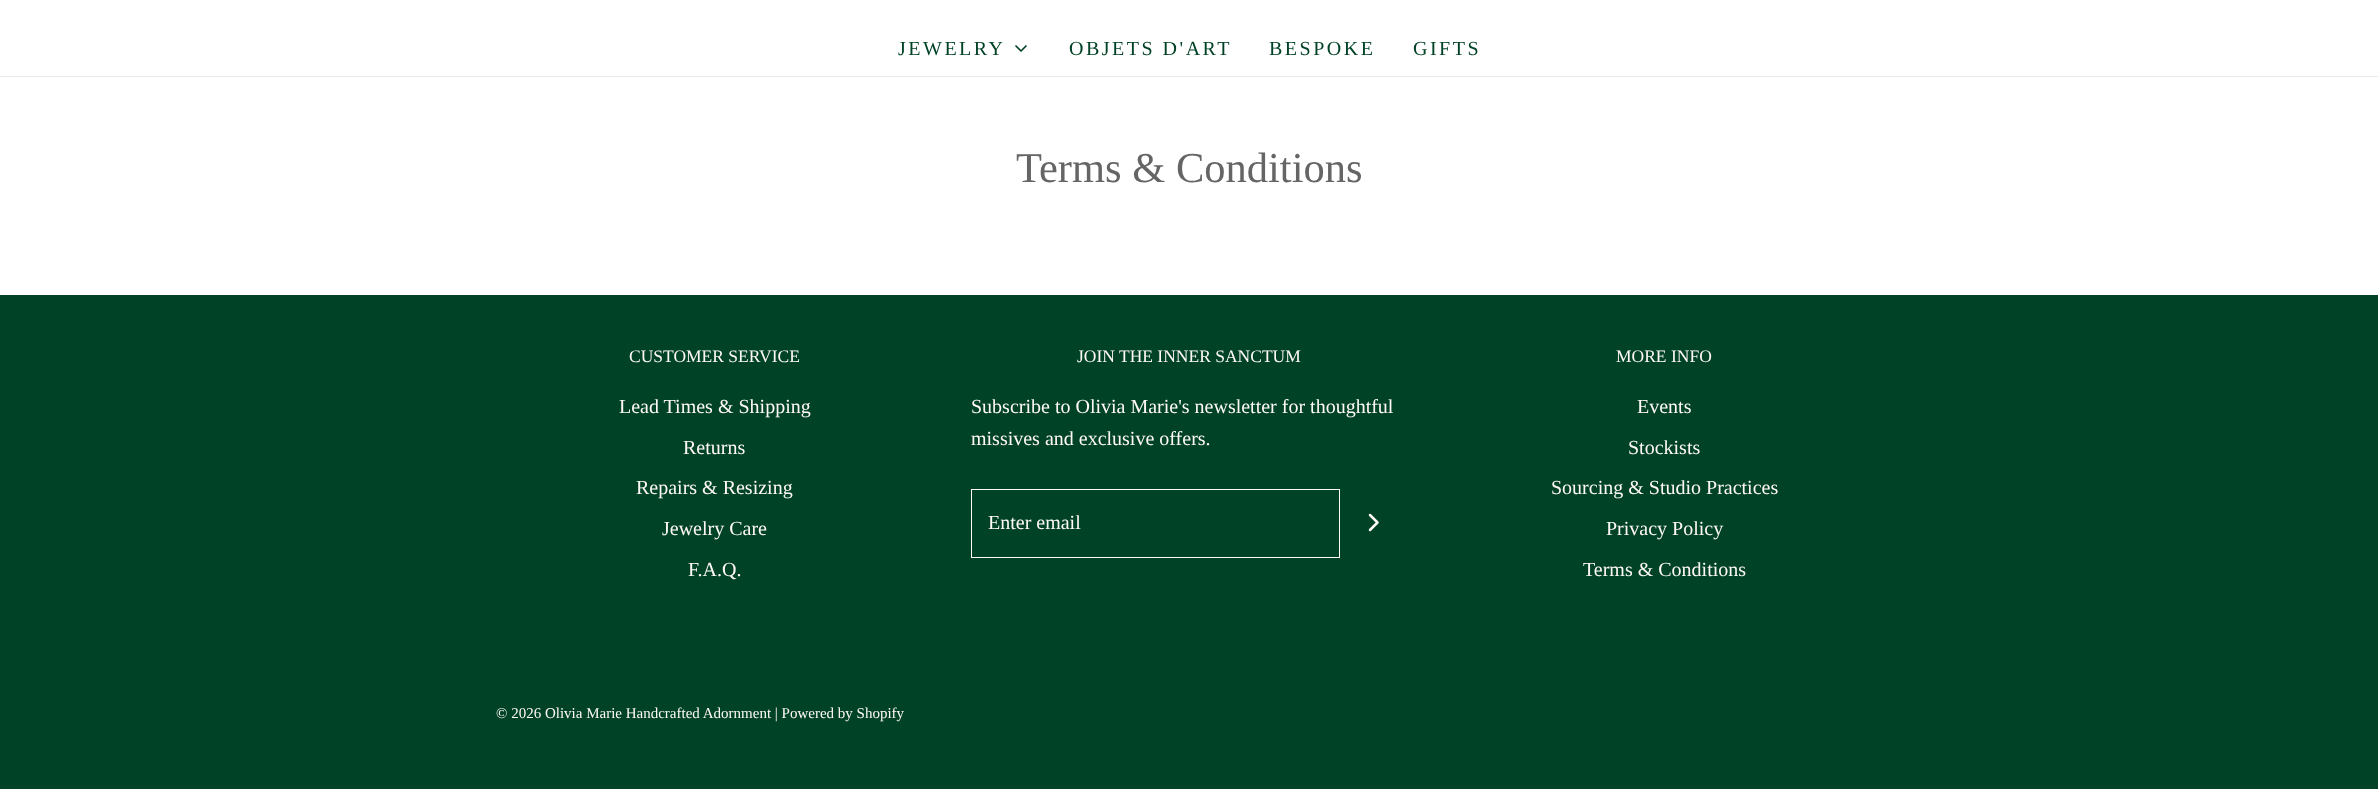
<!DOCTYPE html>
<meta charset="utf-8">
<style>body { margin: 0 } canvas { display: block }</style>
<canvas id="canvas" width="2378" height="789"></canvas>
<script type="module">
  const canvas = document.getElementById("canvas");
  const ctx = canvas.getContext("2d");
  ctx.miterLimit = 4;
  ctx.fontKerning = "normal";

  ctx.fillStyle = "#ffffff";
  ctx.fillRect(0, 0, 2378, 789);
  ctx.fillStyle = "#e6ece9";
  ctx.fillRect(0, 76, 2378, 1);
  ctx.letterSpacing = "2.5px";
  ctx.font = "20px Liberation Serif";
  ctx.fillStyle = "#004225";
  ctx.fillText("JEWELRY", 898, 55);
  ctx.beginPath();
  ctx.moveTo(1016, 46);
  ctx.lineTo(1021, 51);
  ctx.lineTo(1026, 46);
  ctx.strokeStyle = "#004225";
  ctx.lineWidth = 1.7;
  ctx.lineCap = "round";
  ctx.lineJoin = "round";
  ctx.stroke();
  ctx.fillText("OBJETS D'ART", 1069, 55);
  ctx.fillText("BESPOKE", 1269, 55);
  ctx.fillText("GIFTS", 1413, 55);
  ctx.letterSpacing = "0px";
  ctx.font = "42.5px Liberation Serif";
  ctx.fillStyle = "#656565";
  ctx.fillText("Terms & Conditions", 1016, 182);
  ctx.fillStyle = "#004225";
  ctx.fillRect(0, 295, 2378, 494);
  ctx.font = "17.5px Liberation Serif";
  ctx.fillStyle = "#fff9f7";
  ctx.fillText("CUSTOMER SERVICE", 629, 362);
  ctx.font = "20px Liberation Serif";
  ctx.fillText("Lead Times & Shipping", 619, 413);
  ctx.fillText("Returns", 683, 454);
  ctx.fillText("Repairs & Resizing", 636, 494);
  ctx.fillText("Jewelry Care", 662, 535);
  ctx.fillText("F.A.Q.", 688, 576);
  ctx.font = "17.5px Liberation Serif";
  ctx.fillText("JOIN THE INNER SANCTUM", 1077, 362);
  ctx.font = "20px Liberation Serif";
  ctx.fillText("Subscribe to Olivia Marie's newsletter for thoughtful", 971, 413);
  ctx.fillText("missives and exclusive offers.", 971, 445);
  ctx.strokeStyle = "#fff9f7";
  ctx.lineWidth = 1;
  ctx.lineJoin = "miter";
  ctx.strokeRect(971.5, 489.5, 368, 68);
  ctx.fillText("Enter email", 988, 529);
  ctx.beginPath();
  ctx.moveTo(1370, 530);
  ctx.lineTo(1377.5, 522.5);
  ctx.lineTo(1370, 515);
  ctx.lineWidth = 2.5;
  ctx.lineJoin = "round";
  ctx.stroke();
  ctx.font = "17.5px Liberation Serif";
  ctx.fillText("MORE INFO", 1616, 362);
  ctx.font = "20px Liberation Serif";
  ctx.fillText("Events", 1637, 413);
  ctx.fillText("Stockists", 1628, 454);
  ctx.fillText("Sourcing & Studio Practices", 1551, 494);
  ctx.fillText("Privacy Policy", 1606, 535);
  ctx.fillText("Terms & Conditions", 1583, 576);
  ctx.font = "15px Liberation Serif";
  ctx.fillText("© 2026 Olivia Marie Handcrafted Adornment | Powered by Shopify", 496, 718);
</script>
